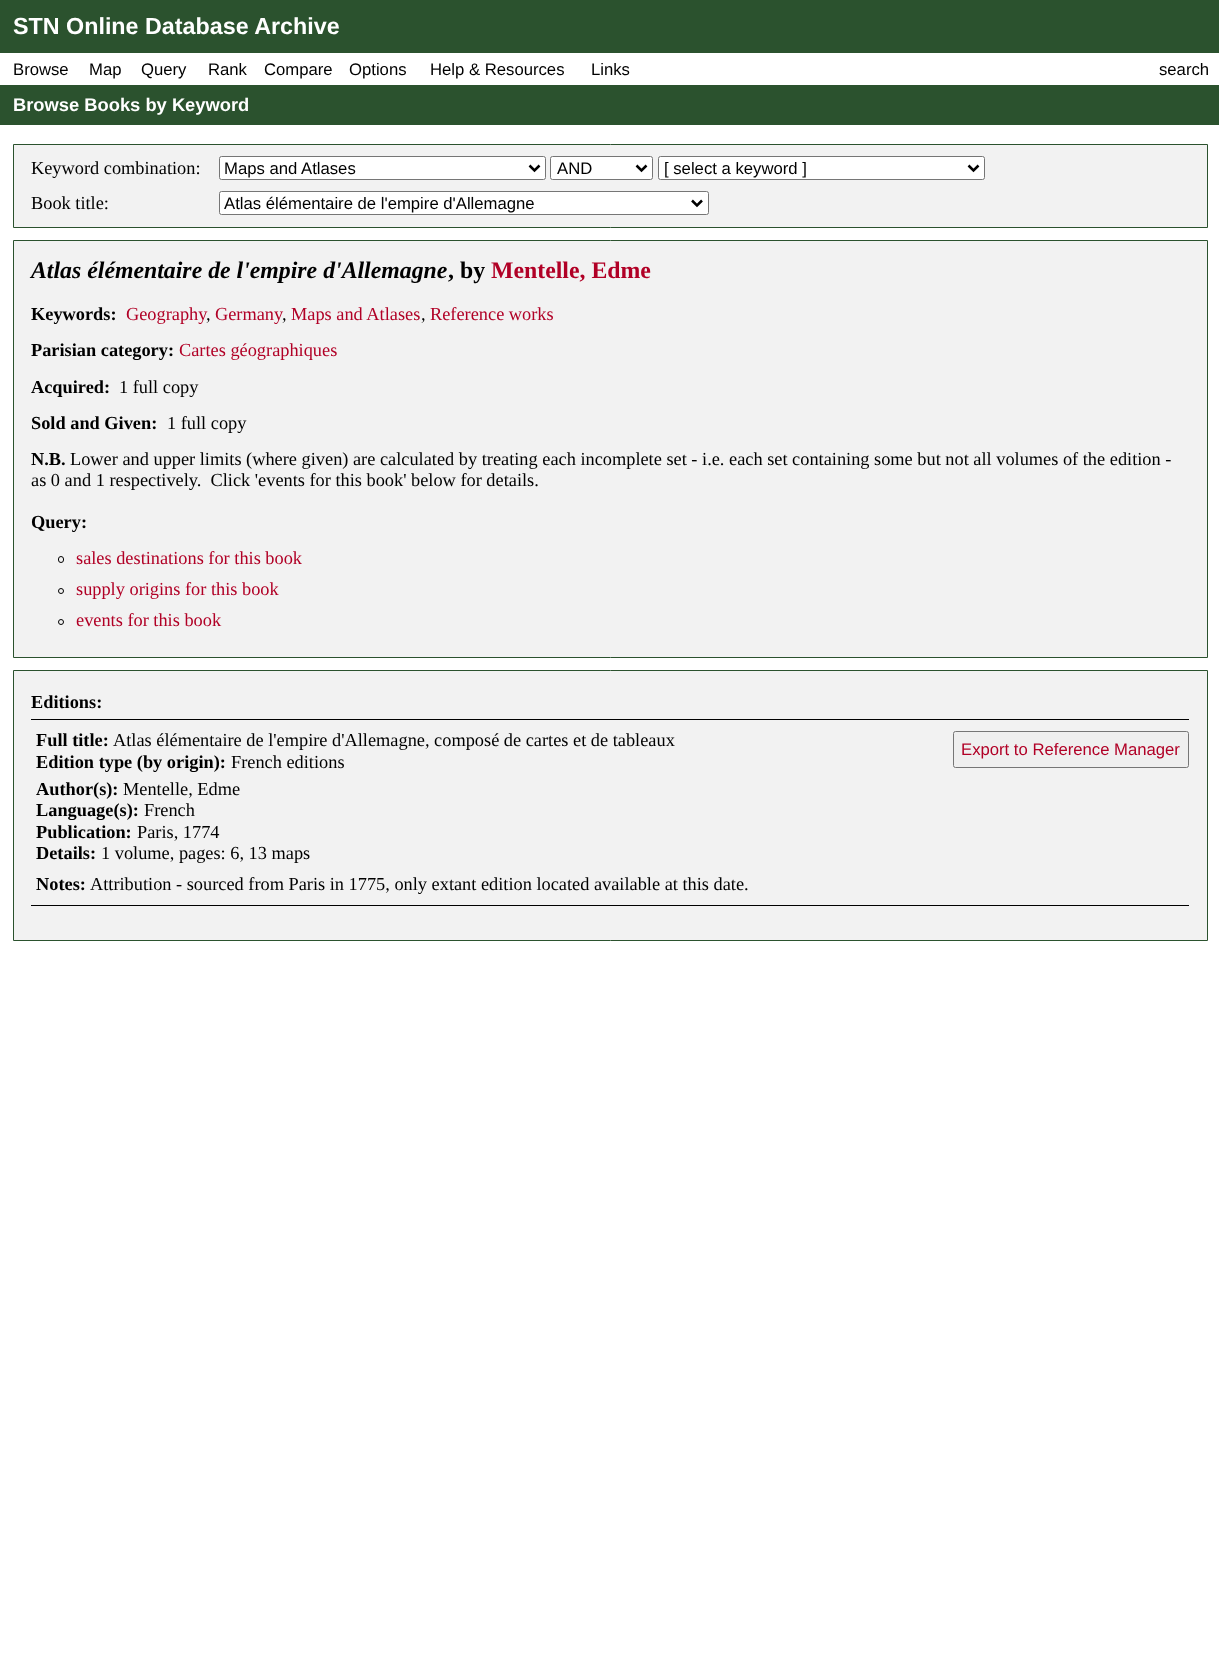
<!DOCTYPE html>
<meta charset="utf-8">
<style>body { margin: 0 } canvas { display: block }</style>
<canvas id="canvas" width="1219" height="1657"></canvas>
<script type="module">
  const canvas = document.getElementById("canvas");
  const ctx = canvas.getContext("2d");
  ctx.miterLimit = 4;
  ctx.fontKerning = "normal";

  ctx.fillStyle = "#ffffff";
  ctx.fillRect(0, 0, 1219, 1657);
  ctx.fillStyle = "#2b522e";
  ctx.fillRect(0, 0, 1219, 53);
  ctx.font = "bold 23.3px Liberation Sans";
  ctx.fillStyle = "#ffffff";
  ctx.fillText("STN Online Database Archive", 13, 34);
  ctx.font = "16.7px Liberation Sans";
  ctx.fillStyle = "#000000";
  ctx.fillText("Browse", 13, 75);
  ctx.fillText("Map", 89, 75);
  ctx.fillText("Query", 141, 75);
  ctx.fillText("Rank", 208, 75);
  ctx.fillText("Compare", 264, 75);
  ctx.fillText("Options", 349, 75);
  ctx.fillText("Help & Resources", 430, 75);
  ctx.fillText("Links", 591, 75);
  ctx.fillText("search", 1159, 75);
  ctx.fillStyle = "#2b522e";
  ctx.fillRect(0, 85, 1219, 40);
  ctx.font = "bold 18.33px Liberation Sans";
  ctx.fillStyle = "#ffffff";
  ctx.fillText("Browse Books by Keyword", 13, 111);
  ctx.fillStyle = "#f2f2f2";
  ctx.beginPath();
  ctx.rect(13.5, 144.5, 1194, 83);
  ctx.fill();
  ctx.strokeStyle = "#2b522e";
  ctx.stroke();
  ctx.font = "18.33px Liberation Serif";
  ctx.fillStyle = "#000000";
  ctx.fillText("Keyword combination:", 31, 174);
  ctx.fillStyle = "#ffffff";
  ctx.beginPath();
  ctx.roundRect(219.5, 156.5, 326, 23, 2);
  ctx.fill();
  ctx.strokeStyle = "#767676";
  ctx.stroke();
  ctx.beginPath();
  ctx.moveTo(529.5, 165.5);
  ctx.lineTo(534.5, 170.5);
  ctx.lineTo(539.5, 165.5);
  ctx.strokeStyle = "#000000";
  ctx.lineWidth = 2.5;
  ctx.stroke();
  ctx.font = "16.7px Liberation Sans";
  ctx.fillStyle = "#000000";
  ctx.fillText("Maps and Atlases", 224, 174);
  ctx.fillStyle = "#ffffff";
  ctx.beginPath();
  ctx.roundRect(550.5, 156.5, 102, 23, 2);
  ctx.fill();
  ctx.strokeStyle = "#767676";
  ctx.lineWidth = 1;
  ctx.stroke();
  ctx.beginPath();
  ctx.moveTo(636.5, 165.5);
  ctx.lineTo(641.5, 170.5);
  ctx.lineTo(646.5, 165.5);
  ctx.strokeStyle = "#000000";
  ctx.lineWidth = 2.5;
  ctx.stroke();
  ctx.fillStyle = "#000000";
  ctx.fillText("AND", 557, 174);
  ctx.fillStyle = "#ffffff";
  ctx.beginPath();
  ctx.roundRect(658.5, 156.5, 326, 23, 2);
  ctx.fill();
  ctx.strokeStyle = "#767676";
  ctx.lineWidth = 1;
  ctx.stroke();
  ctx.beginPath();
  ctx.moveTo(968.5, 165.5);
  ctx.lineTo(973.5, 170.5);
  ctx.lineTo(978.5, 165.5);
  ctx.strokeStyle = "#000000";
  ctx.lineWidth = 2.5;
  ctx.stroke();
  ctx.fillStyle = "#000000";
  ctx.fillText("[ select a keyword ]", 664, 174);
  ctx.font = "18.33px Liberation Serif";
  ctx.fillText("Book title:", 31, 209);
  ctx.fillStyle = "#ffffff";
  ctx.beginPath();
  ctx.roundRect(219.5, 191.5, 489, 23, 2);
  ctx.fill();
  ctx.strokeStyle = "#767676";
  ctx.lineWidth = 1;
  ctx.stroke();
  ctx.beginPath();
  ctx.moveTo(692, 200.5);
  ctx.lineTo(697, 205.5);
  ctx.lineTo(702, 200.5);
  ctx.strokeStyle = "#000000";
  ctx.lineWidth = 2.5;
  ctx.stroke();
  ctx.font = "16.7px Liberation Sans";
  ctx.fillStyle = "#000000";
  ctx.fillText("Atlas élémentaire de l'empire d'Allemagne", 224, 209);
  ctx.fillStyle = "#f2f2f2";
  ctx.beginPath();
  ctx.rect(13.5, 240.5, 1194, 417);
  ctx.fill();
  ctx.strokeStyle = "#2b522e";
  ctx.lineWidth = 1;
  ctx.stroke();
  ctx.font = "italic bold 23.8px Liberation Serif";
  ctx.fillStyle = "#000000";
  ctx.fillText("Atlas élémentaire de l'empire d'Allemagne", 31, 278);
  ctx.font = "bold 23.8px Liberation Serif";
  ctx.fillText(", by", 448, 278);
  ctx.fillStyle = "#b10026";
  ctx.fillText("Mentelle, Edme", 491, 278);
  ctx.font = "bold 18.33px Liberation Serif";
  ctx.fillStyle = "#000000";
  ctx.fillText("Keywords:", 31, 320);
  ctx.font = "18.33px Liberation Serif";
  ctx.fillStyle = "#b10026";
  ctx.fillText("Geography", 126, 320);
  ctx.fillText("Germany", 215, 320);
  ctx.fillText("Maps and Atlases", 291, 320);
  ctx.fillText("Reference works", 430, 320);
  ctx.fillStyle = "#000000";
  ctx.fillText(",", 206, 320);
  ctx.fillText(",", 282, 320);
  ctx.fillText(",", 421, 320);
  ctx.font = "bold 18.33px Liberation Serif";
  ctx.fillText("Parisian category:", 31, 356);
  ctx.font = "18.33px Liberation Serif";
  ctx.fillStyle = "#b10026";
  ctx.fillText("Cartes géographiques", 179, 356);
  ctx.font = "bold 18.33px Liberation Serif";
  ctx.fillStyle = "#000000";
  ctx.fillText("Acquired:", 31, 393);
  ctx.font = "18.33px Liberation Serif";
  ctx.fillText("1 full copy", 119, 393);
  ctx.font = "bold 18.33px Liberation Serif";
  ctx.fillText("Sold and Given:", 31, 429);
  ctx.font = "18.33px Liberation Serif";
  ctx.fillText("1 full copy", 167, 429);
  ctx.font = "bold 18.33px Liberation Serif";
  ctx.fillText("N.B.", 31, 465);
  ctx.font = "18.33px Liberation Serif";
  ctx.fillText("Lower and upper limits (where given) are calculated by treating each incomplete set - i.e. each set containing some but not all volumes of the edition -", 70, 465);
  ctx.fillText("as 0 and 1 respectively.  Click 'events for this book' below for details.", 31, 486);
  ctx.font = "bold 18.33px Liberation Serif";
  ctx.fillText("Query:", 31, 528);
  ctx.beginPath();
  ctx.roundRect(58.5, 556.5, 5, 6, 2.5);
  ctx.strokeStyle = "#000000";
  ctx.stroke();
  ctx.font = "18.33px Liberation Serif";
  ctx.fillStyle = "#b10026";
  ctx.fillText("sales destinations for this book", 76, 564);
  ctx.beginPath();
  ctx.arc(61, 591, 2.5, 0, Math.PI * 2);
  ctx.stroke();
  ctx.fillText("supply origins for this book", 76, 595);
  ctx.beginPath();
  ctx.arc(61, 622, 2.5, 0, Math.PI * 2);
  ctx.stroke();
  ctx.fillText("events for this book", 76, 626);
  ctx.fillStyle = "#f2f2f2";
  ctx.beginPath();
  ctx.rect(13.5, 670.5, 1194, 270);
  ctx.fill();
  ctx.strokeStyle = "#2b522e";
  ctx.stroke();
  ctx.font = "bold 18.33px Liberation Serif";
  ctx.fillStyle = "#000000";
  ctx.fillText("Editions:", 31, 708);
  ctx.fillRect(31, 719, 1158, 1);
  ctx.fillRect(31, 905, 1158, 1);
  ctx.fillText("Full title:", 36, 746);
  ctx.font = "18.33px Liberation Serif";
  ctx.fillText("Atlas élémentaire de l'empire d'Allemagne, composé de cartes et de tableaux", 113, 746);
  ctx.font = "bold 18.33px Liberation Serif";
  ctx.fillText("Edition type (by origin):", 36, 768);
  ctx.font = "18.33px Liberation Serif";
  ctx.fillText("French editions", 231, 768);
  ctx.font = "bold 18.33px Liberation Serif";
  ctx.fillText("Author(s):", 36, 795);
  ctx.font = "18.33px Liberation Serif";
  ctx.fillText("Mentelle, Edme", 123, 795);
  ctx.font = "bold 18.33px Liberation Serif";
  ctx.fillText("Language(s):", 36, 816);
  ctx.font = "18.33px Liberation Serif";
  ctx.fillText("French", 144, 816);
  ctx.font = "bold 18.33px Liberation Serif";
  ctx.fillText("Publication:", 36, 838);
  ctx.font = "18.33px Liberation Serif";
  ctx.fillText("Paris, 1774", 137, 838);
  ctx.font = "bold 18.33px Liberation Serif";
  ctx.fillText("Details:", 36, 859);
  ctx.font = "18.33px Liberation Serif";
  ctx.fillText("1 volume, pages: 6, 13 maps", 101, 859);
  ctx.font = "bold 18.33px Liberation Serif";
  ctx.fillText("Notes:", 36, 890);
  ctx.font = "18.33px Liberation Serif";
  ctx.fillText("Attribution - sourced from Paris in 1775, only extant edition located available at this date.", 90, 890);
  ctx.fillStyle = "#efefef";
  ctx.beginPath();
  ctx.roundRect(953.5, 731.5, 235, 36, 2);
  ctx.fill();
  ctx.strokeStyle = "#767676";
  ctx.stroke();
  ctx.font = "16.7px Liberation Sans";
  ctx.fillStyle = "#b10026";
  ctx.fillText("Export to Reference Manager", 961, 755);
</script>
